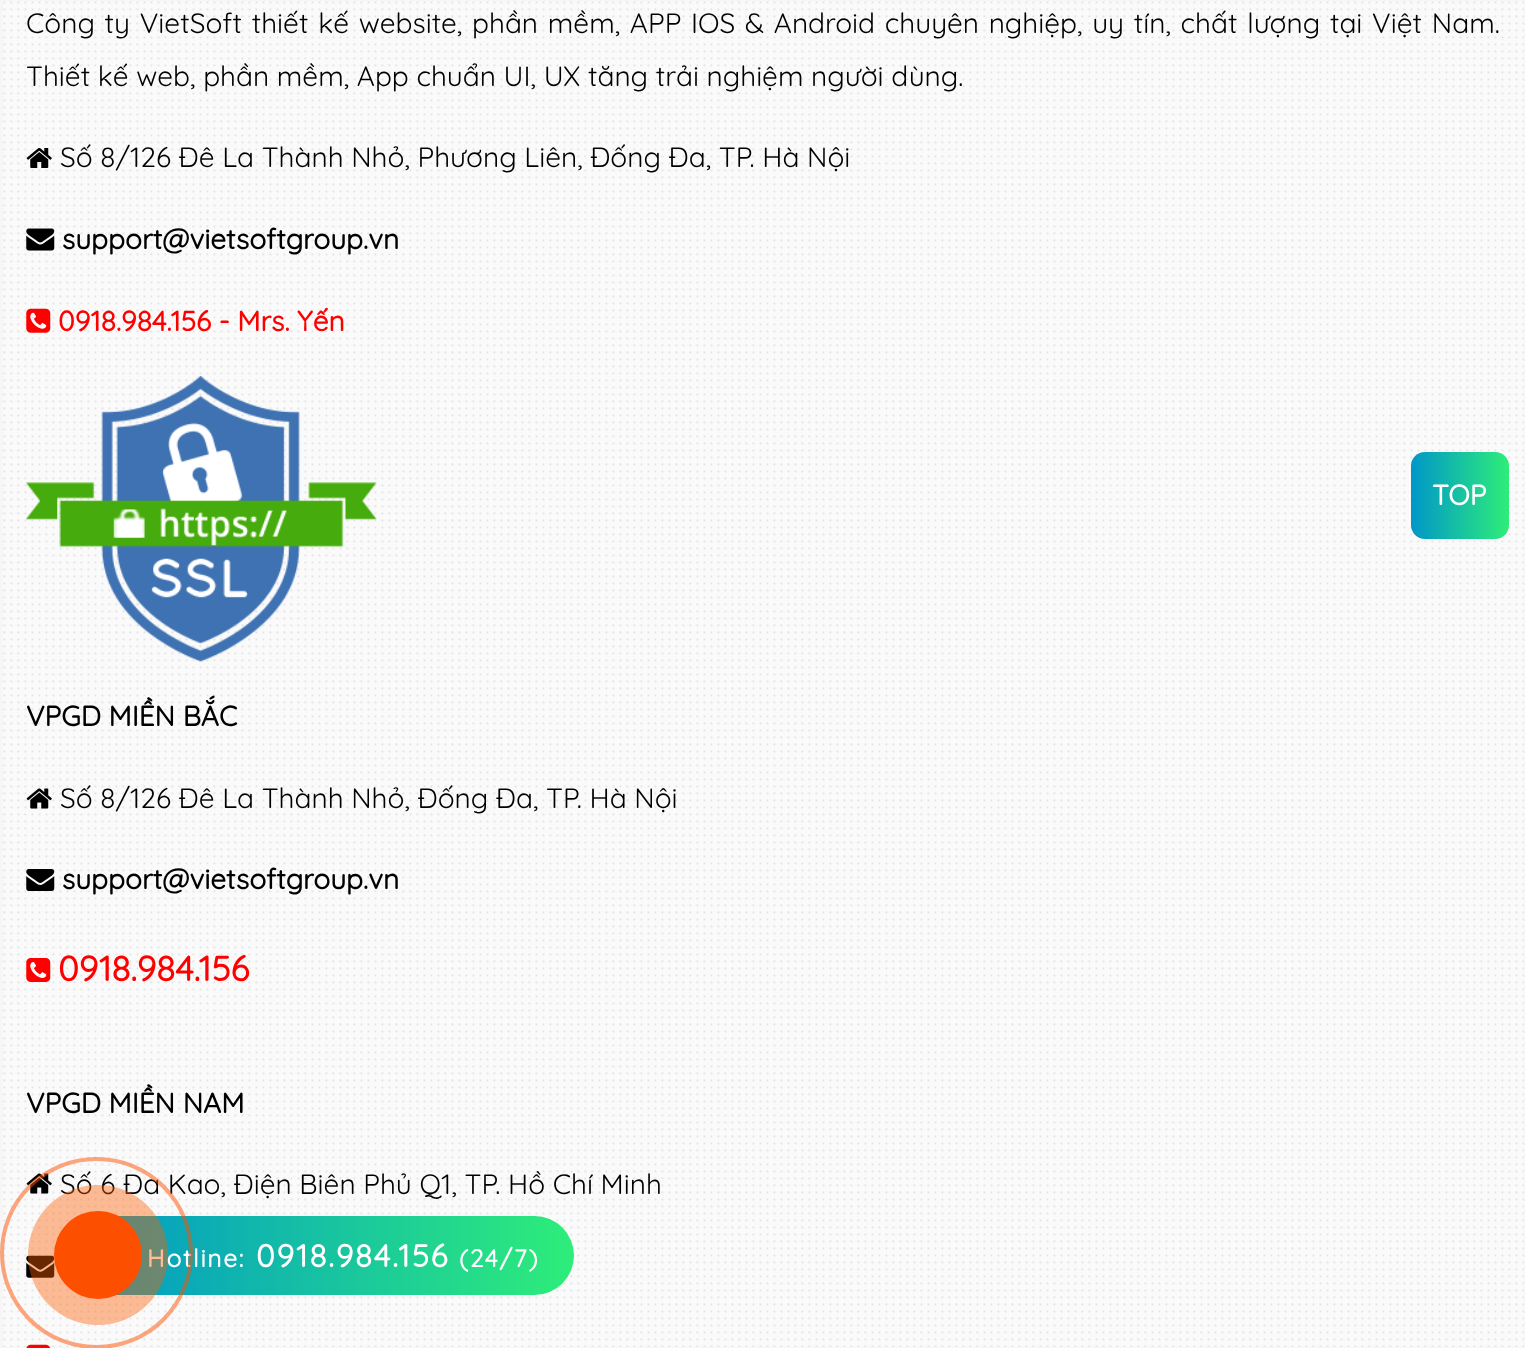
<!DOCTYPE html>
<meta charset="utf-8">
<style>body { margin: 0 } canvas { display: block }</style>
<canvas id="canvas" width="1525" height="1348"></canvas>
<script type="module">
  const canvas = document.getElementById("canvas");
  const ctx = canvas.getContext("2d");
  ctx.miterLimit = 4;
  ctx.fontKerning = "normal";
  async function loadImage(src) {
    const img = new Image();
    img.src = src;
    await img.decode();
    return img;
  }
  let gradient;

  ctx.fillStyle = "#f6f6f6";
  ctx.fillRect(0, 0, 1525, 1348);
  ctx.drawImage(await loadImage("img1.png"), 3, 1, 1521, 1346);
  ctx.wordSpacing = "2.1px";
  ctx.font = "300 28px Quicksand";
  ctx.fillStyle = "#000000";
  ctx.fillText("Công ty VietSoft thiết kế website, phần mềm, APP IOS & Android chuyên nghiệp, uy tín, chất lượng tại Việt Nam.", 26, 33);
  ctx.wordSpacing = "0px";
  ctx.fillText("Thiết kế web, phần mềm, App chuẩn UI, UX tăng trải nghiệm người dùng.", 26, 86);
  ctx.drawImage(await loadImage("img2.png"), 26, 148, 26, 20);
  ctx.fillText("Số 8/126 Đê La Thành Nhỏ, Phương Liên, Đống Đa, TP. Hà Nội", 60, 167);
  ctx.drawImage(await loadImage("img3.png"), 26, 228, 29, 23);
  ctx.font = "bold 28px Quicksand";
  ctx.fillText("support@vietsoftgroup.vn", 62, 249);
  ctx.drawImage(await loadImage("img4.png"), 26, 308, 25, 25);
  ctx.fillStyle = "#ff0000";
  ctx.fillText("0918.984.156 - Mrs. Yến", 58, 331);
  ctx.drawImage(await loadImage("img5.png"), 26, 376, 351, 286);
  ctx.fillStyle = "#000000";
  ctx.fillText("VPGD MIỀN BẮC", 26, 726);
  ctx.drawImage(await loadImage("img6.png"), 26, 788, 26, 21);
  ctx.font = "300 28px Quicksand";
  ctx.fillText("Số 8/126 Đê La Thành Nhỏ, Đống Đa, TP. Hà Nội", 60, 808);
  ctx.drawImage(await loadImage("img7.png"), 26, 869, 29, 22);
  ctx.font = "bold 28px Quicksand";
  ctx.fillText("support@vietsoftgroup.vn", 62, 889);
  ctx.drawImage(await loadImage("img8.png"), 26, 958, 25, 24);
  ctx.font = "bold 35px Quicksand";
  ctx.fillStyle = "#ff0000";
  ctx.fillText("0918.984.156", 58, 981);
  ctx.font = "bold 28px Quicksand";
  ctx.fillStyle = "#000000";
  ctx.fillText("VPGD MIỀN NAM", 26, 1113);
  ctx.drawImage(await loadImage("img6.png"), 26, 1173, 26, 21);
  ctx.font = "300 28px Quicksand";
  ctx.fillText("Số 6 Đa Kao, Điện Biên Phủ Q1, TP. Hồ Chí Minh", 60, 1194);
  ctx.drawImage(await loadImage("img9.png"), 26, 1255, 29, 23);
  ctx.drawImage(await loadImage("img10.png"), 26, 1344, 24, 4);
  gradient = ctx.createLinearGradient(1411, 452, 1509, 452);
  gradient.addColorStop(0, "#0097c9");
  gradient.addColorStop(1, "#2eed79");
  ctx.fillStyle = gradient;
  ctx.beginPath();
  ctx.roundRect(1411, 452, 98, 87, 14);
  ctx.fill();
  ctx.font = "bold 28px Quicksand";
  ctx.fillStyle = "#ffffff";
  ctx.fillText("TOP", 1432, 505);
  gradient = ctx.createLinearGradient(74, 1216, 574, 1216);
  gradient.addColorStop(0, "#0097c9");
  gradient.addColorStop(1, "#2eed79");
  ctx.fillStyle = gradient;
  ctx.beginPath();
  ctx.roundRect(74, 1216, 500, 79, 39.5);
  ctx.fill();
  ctx.letterSpacing = "1.75px";
  ctx.font = "bold 24.5px Quicksand";
  ctx.fillStyle = "#ffffff";
  ctx.fillText("Hotline:", 147, 1267);
  ctx.beginPath();
  ctx.roundRect(2, 1159, 189, 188, 94);
  ctx.strokeStyle = "rgba(253, 79, 0, 0.5)";
  ctx.lineWidth = 4;
  ctx.stroke();
  ctx.fillStyle = "rgba(253, 95, 0, 0.41)";
  ctx.beginPath();
  ctx.arc(98, 1255, 70, 0, Math.PI * 2);
  ctx.fill();
  ctx.fillStyle = "#fd4f00";
  ctx.beginPath();
  ctx.arc(98, 1255, 44, 0, Math.PI * 2);
  ctx.fill();
  ctx.font = "bold 31.5px Quicksand";
  ctx.fillStyle = "#ffffff";
  ctx.fillText("0918.984.156", 256, 1267);
  ctx.font = "bold 24.5px Quicksand";
  ctx.fillText("(24/7)", 459, 1267);
</script>
